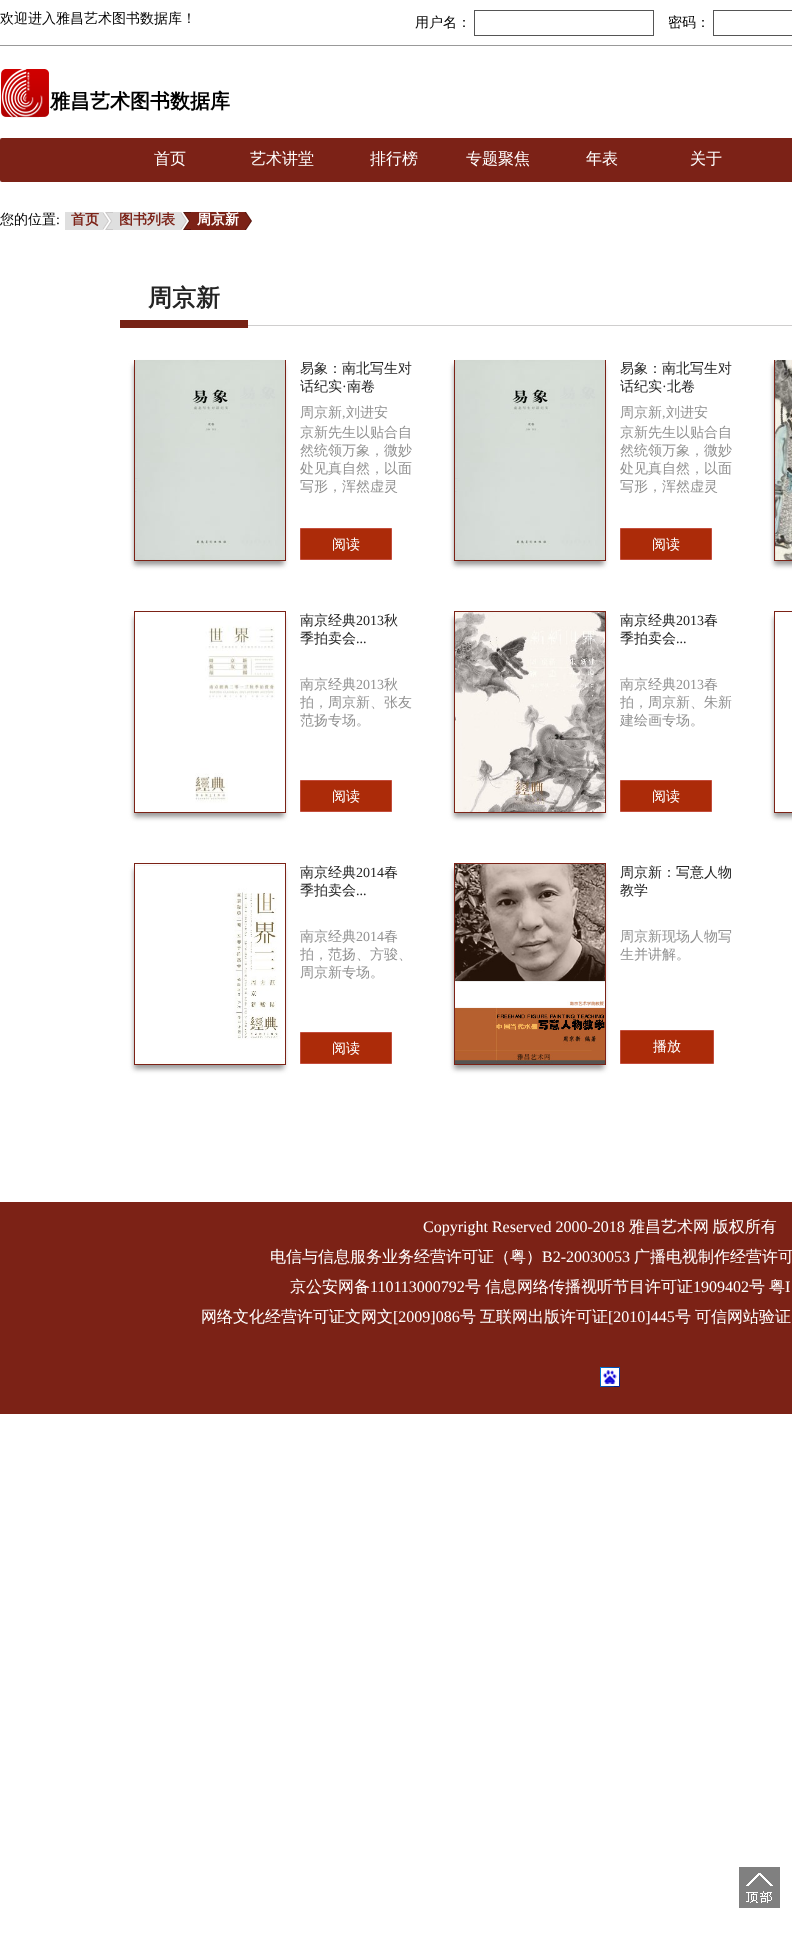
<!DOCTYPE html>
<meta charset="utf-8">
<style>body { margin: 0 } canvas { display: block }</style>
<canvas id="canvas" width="792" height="1948"></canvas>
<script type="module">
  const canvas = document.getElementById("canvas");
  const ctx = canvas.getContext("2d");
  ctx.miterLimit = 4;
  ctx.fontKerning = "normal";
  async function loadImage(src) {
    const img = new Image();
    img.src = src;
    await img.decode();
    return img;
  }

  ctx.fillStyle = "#ffffff";
  ctx.fillRect(0, 0, 792, 1948);
  ctx.fillStyle = "#999999";
  ctx.fillRect(0, 45, 792, 1);
  ctx.font = "500 14px WenQuanYi Zen Hei";
  ctx.fillStyle = "#000000";
  ctx.fillText("欢迎进入雅昌艺术图书数据库！", 0, 23);
  ctx.fillText("用户名：", 415, 27);
  ctx.strokeStyle = "#555555";
  ctx.strokeRect(474.5, 10.5, 179, 25);
  ctx.fillText("密码：", 668, 27);
  ctx.strokeRect(713.5, 10.5, 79, 25);
  ctx.drawImage(await loadImage("img1.png"), 1, 69, 48, 49);
  ctx.font = "bold 20px WenQuanYi Zen Hei";
  ctx.fillText("雅昌艺术图书数据库", 50, 108);
  ctx.fillStyle = "#7c2217";
  ctx.beginPath();
  ctx.roundRect(0, 138, 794, 44, 2);
  ctx.fill();
  ctx.font = "500 16px WenQuanYi Zen Hei";
  ctx.fillStyle = "#ffffff";
  ctx.fillText("首页", 154, 164);
  ctx.fillText("艺术讲堂", 250, 164);
  ctx.fillText("排行榜", 370, 164);
  ctx.fillText("专题聚焦", 466, 164);
  ctx.fillText("年表", 586, 164);
  ctx.fillText("关于", 690, 164);
  ctx.font = "500 14px WenQuanYi Zen Hei";
  ctx.fillStyle = "#000000";
  ctx.fillText("您的位置", 0, 224);
  ctx.font = "14px Liberation Serif";
  ctx.fillText(":", 56, 224);
  ctx.fillStyle = "#dfdfdf";
  ctx.fillRect(65, 212, 38, 18);
  ctx.font = "bold 14px WenQuanYi Zen Hei";
  ctx.fillStyle = "#7c2217";
  ctx.fillText("首页", 71, 224);
  ctx.drawImage(await loadImage("img2.png"), 103, 212, 10, 18);
  ctx.fillStyle = "#dfdfdf";
  ctx.fillRect(113, 212, 68, 18);
  ctx.fillStyle = "#7c2217";
  ctx.fillText("图书列表", 119, 224);
  ctx.drawImage(await loadImage("img3.png"), 181, 212, 10, 18);
  ctx.fillStyle = "#7c2216";
  ctx.fillRect(191, 212, 54, 18);
  ctx.fillStyle = "#ffffff";
  ctx.fillText("周京新", 197, 224);
  ctx.drawImage(await loadImage("img4.png"), 245, 212, 7, 18);
  ctx.fillStyle = "#cfcece";
  ctx.fillRect(248, 325, 544, 1);
  ctx.fillStyle = "#772316";
  ctx.fillRect(120, 320, 128, 8);
  ctx.font = "bold 24px WenQuanYi Zen Hei";
  ctx.fillStyle = "#242424";
  ctx.fillText("周京新", 148, 306);
  ctx.fillStyle = "#999999";
  ctx.filter = "blur(2.5px)";
  ctx.beginPath();
  ctx.rect(134, 365, 150, 200);
  ctx.fill();
  ctx.filter = "none";
  ctx.save();
  ctx.beginPath();
  ctx.rect(120, 360, 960, 756);
  ctx.clip();
  ctx.strokeStyle = "#7c2216";
  ctx.strokeRect(134.5, 359.5, 151, 201);
  ctx.restore();
  ctx.drawImage(await loadImage("img5.png"), 135, 360, 150, 200);
  ctx.font = "500 14px WenQuanYi Zen Hei";
  ctx.fillStyle = "#242424";
  ctx.fillText("易象：南北写生对", 300, 373);
  ctx.fillText("话纪实", 300, 391);
  ctx.font = "14px Liberation Serif";
  ctx.fillText("·", 342, 391);
  ctx.font = "500 14px WenQuanYi Zen Hei";
  ctx.fillText("南卷", 347, 391);
  ctx.fillStyle = "#929292";
  ctx.fillText("周京新", 300, 417);
  ctx.font = "14px Liberation Serif";
  ctx.fillText(",", 342, 417);
  ctx.font = "500 14px WenQuanYi Zen Hei";
  ctx.fillText("刘进安", 346, 417);
  ctx.fillText("京新先生以贴合自", 300, 437);
  ctx.fillText("然统领万象，微妙", 300, 455);
  ctx.fillText("处见真自然，以面", 300, 473);
  ctx.fillText("写形，浑然虚灵", 300, 491);
  ctx.fillStyle = "#ac2b09";
  ctx.beginPath();
  ctx.rect(300.5, 528.5, 91, 31);
  ctx.fill();
  ctx.strokeStyle = "#c34d3c";
  ctx.stroke();
  ctx.fillStyle = "#ffffff";
  ctx.fillText("阅读", 332, 549);
  ctx.fillStyle = "#999999";
  ctx.filter = "blur(2.5px)";
  ctx.beginPath();
  ctx.rect(454, 365, 150, 200);
  ctx.fill();
  ctx.filter = "none";
  ctx.save();
  ctx.beginPath();
  ctx.rect(120, 360, 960, 756);
  ctx.clip();
  ctx.strokeStyle = "#7c2216";
  ctx.strokeRect(454.5, 359.5, 151, 201);
  ctx.restore();
  ctx.drawImage(await loadImage("img6.png"), 455, 360, 150, 200);
  ctx.fillStyle = "#242424";
  ctx.fillText("易象：南北写生对", 620, 373);
  ctx.fillText("话纪实", 620, 391);
  ctx.font = "14px Liberation Serif";
  ctx.fillText("·", 662, 391);
  ctx.font = "500 14px WenQuanYi Zen Hei";
  ctx.fillText("北卷", 667, 391);
  ctx.fillStyle = "#929292";
  ctx.fillText("周京新", 620, 417);
  ctx.font = "14px Liberation Serif";
  ctx.fillText(",", 662, 417);
  ctx.font = "500 14px WenQuanYi Zen Hei";
  ctx.fillText("刘进安", 666, 417);
  ctx.fillText("京新先生以贴合自", 620, 437);
  ctx.fillText("然统领万象，微妙", 620, 455);
  ctx.fillText("处见真自然，以面", 620, 473);
  ctx.fillText("写形，浑然虚灵", 620, 491);
  ctx.fillStyle = "#ac2b09";
  ctx.beginPath();
  ctx.rect(620.5, 528.5, 91, 31);
  ctx.fill();
  ctx.stroke();
  ctx.fillStyle = "#ffffff";
  ctx.fillText("阅读", 652, 549);
  ctx.fillStyle = "#999999";
  ctx.filter = "blur(2.5px)";
  ctx.beginPath();
  ctx.rect(774, 365, 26, 200);
  ctx.fill();
  ctx.filter = "none";
  ctx.save();
  ctx.beginPath();
  ctx.rect(120, 360, 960, 756);
  ctx.clip();
  ctx.strokeStyle = "#7c2216";
  ctx.strokeRect(774.5, 359.5, 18, 201);
  ctx.restore();
  ctx.drawImage(await loadImage("img7.png"), 775, 360, 17, 200);
  ctx.save();
  ctx.beginPath();
  ctx.moveTo(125, 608);
  ctx.lineTo(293, 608);
  ctx.lineTo(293, 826);
  ctx.lineTo(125, 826);
  ctx.closePath();
  ctx.moveTo(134, 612);
  ctx.lineTo(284, 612);
  ctx.lineTo(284, 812);
  ctx.lineTo(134, 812);
  ctx.closePath();
  ctx.clip("evenodd");
  ctx.filter = "blur(2.5px)";
  ctx.beginPath();
  ctx.rect(134, 617, 150, 200);
  ctx.fill();
  ctx.filter = "none";
  ctx.restore();
  ctx.strokeStyle = "#7c2216";
  ctx.strokeRect(134.5, 611.5, 151, 201);
  ctx.drawImage(await loadImage("img8.png"), 195, 614, 90, 198);
  ctx.fillStyle = "#242424";
  ctx.fillText("南京经典", 300, 625);
  ctx.font = "14px Liberation Serif";
  ctx.fillText("2013", 356, 625);
  ctx.font = "500 14px WenQuanYi Zen Hei";
  ctx.fillText("秋", 384, 625);
  ctx.fillText("季拍卖会", 300, 643);
  ctx.font = "14px Liberation Serif";
  ctx.fillText("...", 356, 643);
  ctx.font = "500 14px WenQuanYi Zen Hei";
  ctx.fillStyle = "#929292";
  ctx.fillText("南京经典", 300, 689);
  ctx.font = "14px Liberation Serif";
  ctx.fillText("2013", 356, 689);
  ctx.font = "500 14px WenQuanYi Zen Hei";
  ctx.fillText("秋", 384, 689);
  ctx.fillText("拍，周京新、张友", 300, 707);
  ctx.fillText("范扬专场。", 300, 725);
  ctx.fillStyle = "#ac2b09";
  ctx.beginPath();
  ctx.rect(300.5, 780.5, 91, 31);
  ctx.fill();
  ctx.strokeStyle = "#c34d3c";
  ctx.stroke();
  ctx.fillStyle = "#ffffff";
  ctx.fillText("阅读", 332, 801);
  ctx.fillStyle = "#999999";
  ctx.filter = "blur(2.5px)";
  ctx.beginPath();
  ctx.rect(454, 617, 150, 200);
  ctx.fill();
  ctx.filter = "none";
  ctx.strokeStyle = "#7c2216";
  ctx.strokeRect(454.5, 611.5, 151, 201);
  ctx.drawImage(await loadImage("img9.png"), 455, 612, 150, 200);
  ctx.fillStyle = "#242424";
  ctx.fillText("南京经典", 620, 625);
  ctx.font = "14px Liberation Serif";
  ctx.fillText("2013", 676, 625);
  ctx.font = "500 14px WenQuanYi Zen Hei";
  ctx.fillText("春", 704, 625);
  ctx.fillText("季拍卖会", 620, 643);
  ctx.font = "14px Liberation Serif";
  ctx.fillText("...", 676, 643);
  ctx.font = "500 14px WenQuanYi Zen Hei";
  ctx.fillStyle = "#929292";
  ctx.fillText("南京经典", 620, 689);
  ctx.font = "14px Liberation Serif";
  ctx.fillText("2013", 676, 689);
  ctx.font = "500 14px WenQuanYi Zen Hei";
  ctx.fillText("春", 704, 689);
  ctx.fillText("拍，周京新、朱新", 620, 707);
  ctx.fillText("建绘画专场。", 620, 725);
  ctx.fillStyle = "#ac2b09";
  ctx.beginPath();
  ctx.rect(620.5, 780.5, 91, 31);
  ctx.fill();
  ctx.strokeStyle = "#c34d3c";
  ctx.stroke();
  ctx.fillStyle = "#ffffff";
  ctx.fillText("阅读", 652, 801);
  ctx.save();
  ctx.beginPath();
  ctx.moveTo(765, 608);
  ctx.lineTo(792, 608);
  ctx.lineTo(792, 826);
  ctx.lineTo(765, 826);
  ctx.closePath();
  ctx.moveTo(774, 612);
  ctx.lineTo(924, 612);
  ctx.lineTo(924, 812);
  ctx.lineTo(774, 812);
  ctx.closePath();
  ctx.clip("evenodd");
  ctx.fillStyle = "#999999";
  ctx.filter = "blur(2.5px)";
  ctx.beginPath();
  ctx.rect(774, 617, 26, 200);
  ctx.fill();
  ctx.filter = "none";
  ctx.restore();
  ctx.strokeStyle = "#7c2216";
  ctx.strokeRect(774.5, 611.5, 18, 201);
  ctx.fillStyle = "#999999";
  ctx.filter = "blur(2.5px)";
  ctx.beginPath();
  ctx.rect(134, 869, 150, 200);
  ctx.fill();
  ctx.filter = "none";
  ctx.strokeRect(134.5, 863.5, 151, 201);
  ctx.drawImage(await loadImage("img10.png"), 135, 866, 150, 198);
  ctx.fillStyle = "#242424";
  ctx.fillText("南京经典", 300, 877);
  ctx.font = "14px Liberation Serif";
  ctx.fillText("2014", 356, 877);
  ctx.font = "500 14px WenQuanYi Zen Hei";
  ctx.fillText("春", 384, 877);
  ctx.fillText("季拍卖会", 300, 895);
  ctx.font = "14px Liberation Serif";
  ctx.fillText("...", 356, 895);
  ctx.font = "500 14px WenQuanYi Zen Hei";
  ctx.fillStyle = "#929292";
  ctx.fillText("南京经典", 300, 941);
  ctx.font = "14px Liberation Serif";
  ctx.fillText("2014", 356, 941);
  ctx.font = "500 14px WenQuanYi Zen Hei";
  ctx.fillText("春", 384, 941);
  ctx.fillText("拍，范扬、方骏、", 300, 959);
  ctx.fillText("周京新专场。", 300, 977);
  ctx.fillStyle = "#ac2b09";
  ctx.beginPath();
  ctx.rect(300.5, 1032.5, 91, 31);
  ctx.fill();
  ctx.strokeStyle = "#c34d3c";
  ctx.stroke();
  ctx.fillStyle = "#ffffff";
  ctx.fillText("阅读", 332, 1053);
  ctx.fillStyle = "#999999";
  ctx.filter = "blur(2.5px)";
  ctx.beginPath();
  ctx.rect(454, 869, 150, 200);
  ctx.fill();
  ctx.filter = "none";
  ctx.strokeStyle = "#7c2216";
  ctx.strokeRect(454.5, 863.5, 151, 201);
  ctx.drawImage(await loadImage("img11.png"), 455, 864, 150, 200);
  ctx.fillStyle = "#242424";
  ctx.fillText("周京新：写意人物", 620, 877);
  ctx.fillText("教学", 620, 895);
  ctx.fillStyle = "#929292";
  ctx.fillText("周京新现场人物写", 620, 941);
  ctx.fillText("生并讲解。", 620, 959);
  ctx.fillStyle = "#ac2b09";
  ctx.beginPath();
  ctx.rect(620.5, 1030.5, 93, 33);
  ctx.fill();
  ctx.strokeStyle = "#c34d3c";
  ctx.stroke();
  ctx.fillStyle = "#ffffff";
  ctx.fillText("播放", 653, 1051);
  ctx.drawImage(await loadImage("img12.png"), 739, 1867, 41, 41);
  ctx.fillStyle = "#7c2216";
  ctx.fillRect(0, 1202, 792, 212);
  ctx.font = "16px Liberation Serif";
  ctx.fillStyle = "#ffffff";
  ctx.fillText("Copyright Reserved 2000-2018", 423, 1232);
  ctx.wordSpacing = "-1px";
  ctx.font = "500 16px WenQuanYi Zen Hei";
  ctx.fillText("雅昌艺术网 版权所有", 629, 1232);
  ctx.wordSpacing = "0px";
  ctx.fillText("电信与信息服务业务经营许可证（粤）", 270, 1262);
  ctx.font = "16px Liberation Serif";
  ctx.fillText("B2-20030053", 542, 1262);
  ctx.font = "500 16px WenQuanYi Zen Hei";
  ctx.fillText("广播电视制作经营许可", 634, 1262);
  ctx.fillText("京公安网备", 290, 1292);
  ctx.font = "16px Liberation Serif";
  ctx.fillText("110113000792", 370, 1292);
  ctx.font = "500 16px WenQuanYi Zen Hei";
  ctx.fillText("号", 465, 1292);
  ctx.fillText("信息网络传播视听节目许可证", 485, 1292);
  ctx.font = "16px Liberation Serif";
  ctx.fillText("1909402", 693, 1292);
  ctx.font = "500 16px WenQuanYi Zen Hei";
  ctx.fillText("号", 749, 1292);
  ctx.fillText("粤", 769, 1292);
  ctx.font = "16px Liberation Serif";
  ctx.fillText("I", 785, 1292);
  ctx.font = "500 16px WenQuanYi Zen Hei";
  ctx.fillText("网络文化经营许可证文网文", 201, 1322);
  ctx.font = "16px Liberation Serif";
  ctx.fillText("[2009]086", 393, 1322);
  ctx.font = "500 16px WenQuanYi Zen Hei";
  ctx.fillText("号", 460, 1322);
  ctx.fillText("互联网出版许可证", 480, 1322);
  ctx.font = "16px Liberation Serif";
  ctx.fillText("[2010]445", 608, 1322);
  ctx.font = "500 16px WenQuanYi Zen Hei";
  ctx.fillText("号", 675, 1322);
  ctx.fillText("可信网站验证", 695, 1322);
  ctx.drawImage(await loadImage("img13.png"), 600, 1367, 20, 20);
</script>
